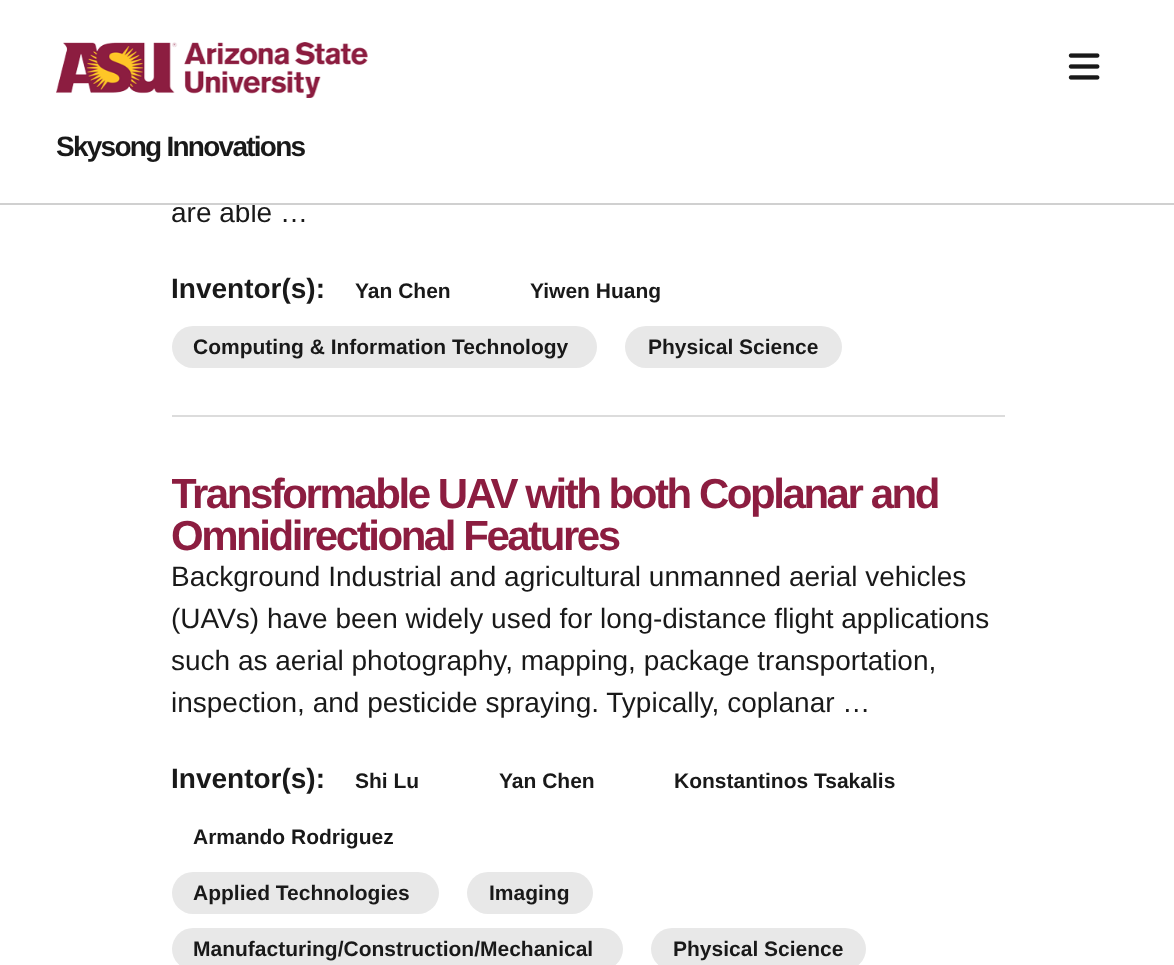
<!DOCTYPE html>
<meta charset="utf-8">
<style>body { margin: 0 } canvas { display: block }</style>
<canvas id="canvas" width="1174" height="965"></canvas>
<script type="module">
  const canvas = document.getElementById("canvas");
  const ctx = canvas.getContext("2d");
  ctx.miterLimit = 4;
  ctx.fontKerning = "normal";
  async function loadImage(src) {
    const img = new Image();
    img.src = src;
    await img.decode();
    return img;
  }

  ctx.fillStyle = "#ffffff";
  ctx.fillRect(0, 0, 1174, 965);
  ctx.font = "28px Liberation Sans";
  ctx.fillStyle = "#191919";
  ctx.fillText("are able …", 171, 222);
  ctx.fillStyle = "#ffffff";
  ctx.fillRect(236, 201, 19, 2);
  ctx.fillStyle = "#d0d0d0";
  ctx.fillRect(0, 203, 1174, 2);
  ctx.drawImage(await loadImage("img1.png"), 56, 42, 312, 56);
  ctx.drawImage(await loadImage("img2.png"), 1068, 53, 32, 27);
  ctx.letterSpacing = "-1.75px";
  ctx.font = "bold 28px Liberation Sans";
  ctx.fillStyle = "#191919";
  ctx.fillText("Skysong Innovations", 56, 156);
  ctx.fillStyle = "#dcdcdc";
  ctx.fillRect(172, 415, 833, 2);
  ctx.letterSpacing = "0px";
  ctx.fillStyle = "#191919";
  ctx.fillText("Inventor(s):", 171, 298);
  ctx.font = "bold 21px Liberation Sans";
  ctx.fillText("Yan Chen", 355, 298);
  ctx.fillText("Yiwen Huang", 530, 298);
  ctx.fillStyle = "#e8e8e8";
  ctx.beginPath();
  ctx.roundRect(172, 326, 425, 42, 21);
  ctx.fill();
  ctx.fillStyle = "#191919";
  ctx.fillText("Computing & Information Technology", 193, 354);
  ctx.fillStyle = "#e8e8e8";
  ctx.beginPath();
  ctx.roundRect(625, 326, 217, 42, 21);
  ctx.fill();
  ctx.fillStyle = "#191919";
  ctx.fillText("Physical Science", 648, 354);
  ctx.save();
  ctx.beginPath();
  ctx.rect(172, 473, 833, 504);
  ctx.clip();
  ctx.letterSpacing = "-2.45px";
  ctx.font = "bold 42px Liberation Sans";
  ctx.fillStyle = "#8c1d40";
  ctx.fillText("Transformable UAV with both Coplanar and", 171, 508);
  ctx.restore();
  ctx.letterSpacing = "-2.45px";
  ctx.font = "bold 42px Liberation Sans";
  ctx.fillStyle = "#8c1d40";
  ctx.fillText("Omnidirectional Features", 171, 550);
  ctx.letterSpacing = "0px";
  ctx.font = "28px Liberation Sans";
  ctx.fillStyle = "#191919";
  ctx.fillText("Background Industrial and agricultural unmanned aerial vehicles", 171, 586);
  ctx.fillText("(UAVs) have been widely used for long-distance flight applications", 171, 628);
  ctx.fillText("such as aerial photography, mapping, package transportation,", 171, 670);
  ctx.fillText("inspection, and pesticide spraying. Typically, coplanar …", 171, 712);
  ctx.font = "bold 28px Liberation Sans";
  ctx.fillText("Inventor(s):", 171, 788);
  ctx.font = "bold 21px Liberation Sans";
  ctx.fillText("Shi Lu", 355, 788);
  ctx.fillText("Yan Chen", 499, 788);
  ctx.fillText("Konstantinos Tsakalis", 674, 788);
  ctx.fillText("Armando Rodriguez", 193, 844);
  ctx.fillStyle = "#e8e8e8";
  ctx.beginPath();
  ctx.roundRect(172, 872, 267, 42, 21);
  ctx.fill();
  ctx.fillStyle = "#191919";
  ctx.fillText("Applied Technologies", 193, 900);
  ctx.fillStyle = "#e8e8e8";
  ctx.beginPath();
  ctx.roundRect(467, 872, 126, 42, 21);
  ctx.fill();
  ctx.fillStyle = "#191919";
  ctx.fillText("Imaging", 489, 900);
  ctx.fillStyle = "#e8e8e8";
  ctx.beginPath();
  ctx.roundRect(172, 928, 451, 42, 21);
  ctx.fill();
  ctx.fillStyle = "#191919";
  ctx.fillText("Manufacturing/Construction/Mechanical", 193, 956);
  ctx.fillStyle = "#e8e8e8";
  ctx.beginPath();
  ctx.roundRect(651, 928, 215, 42, 21);
  ctx.fill();
  ctx.fillStyle = "#191919";
  ctx.fillText("Physical Science", 673, 956);
</script>
